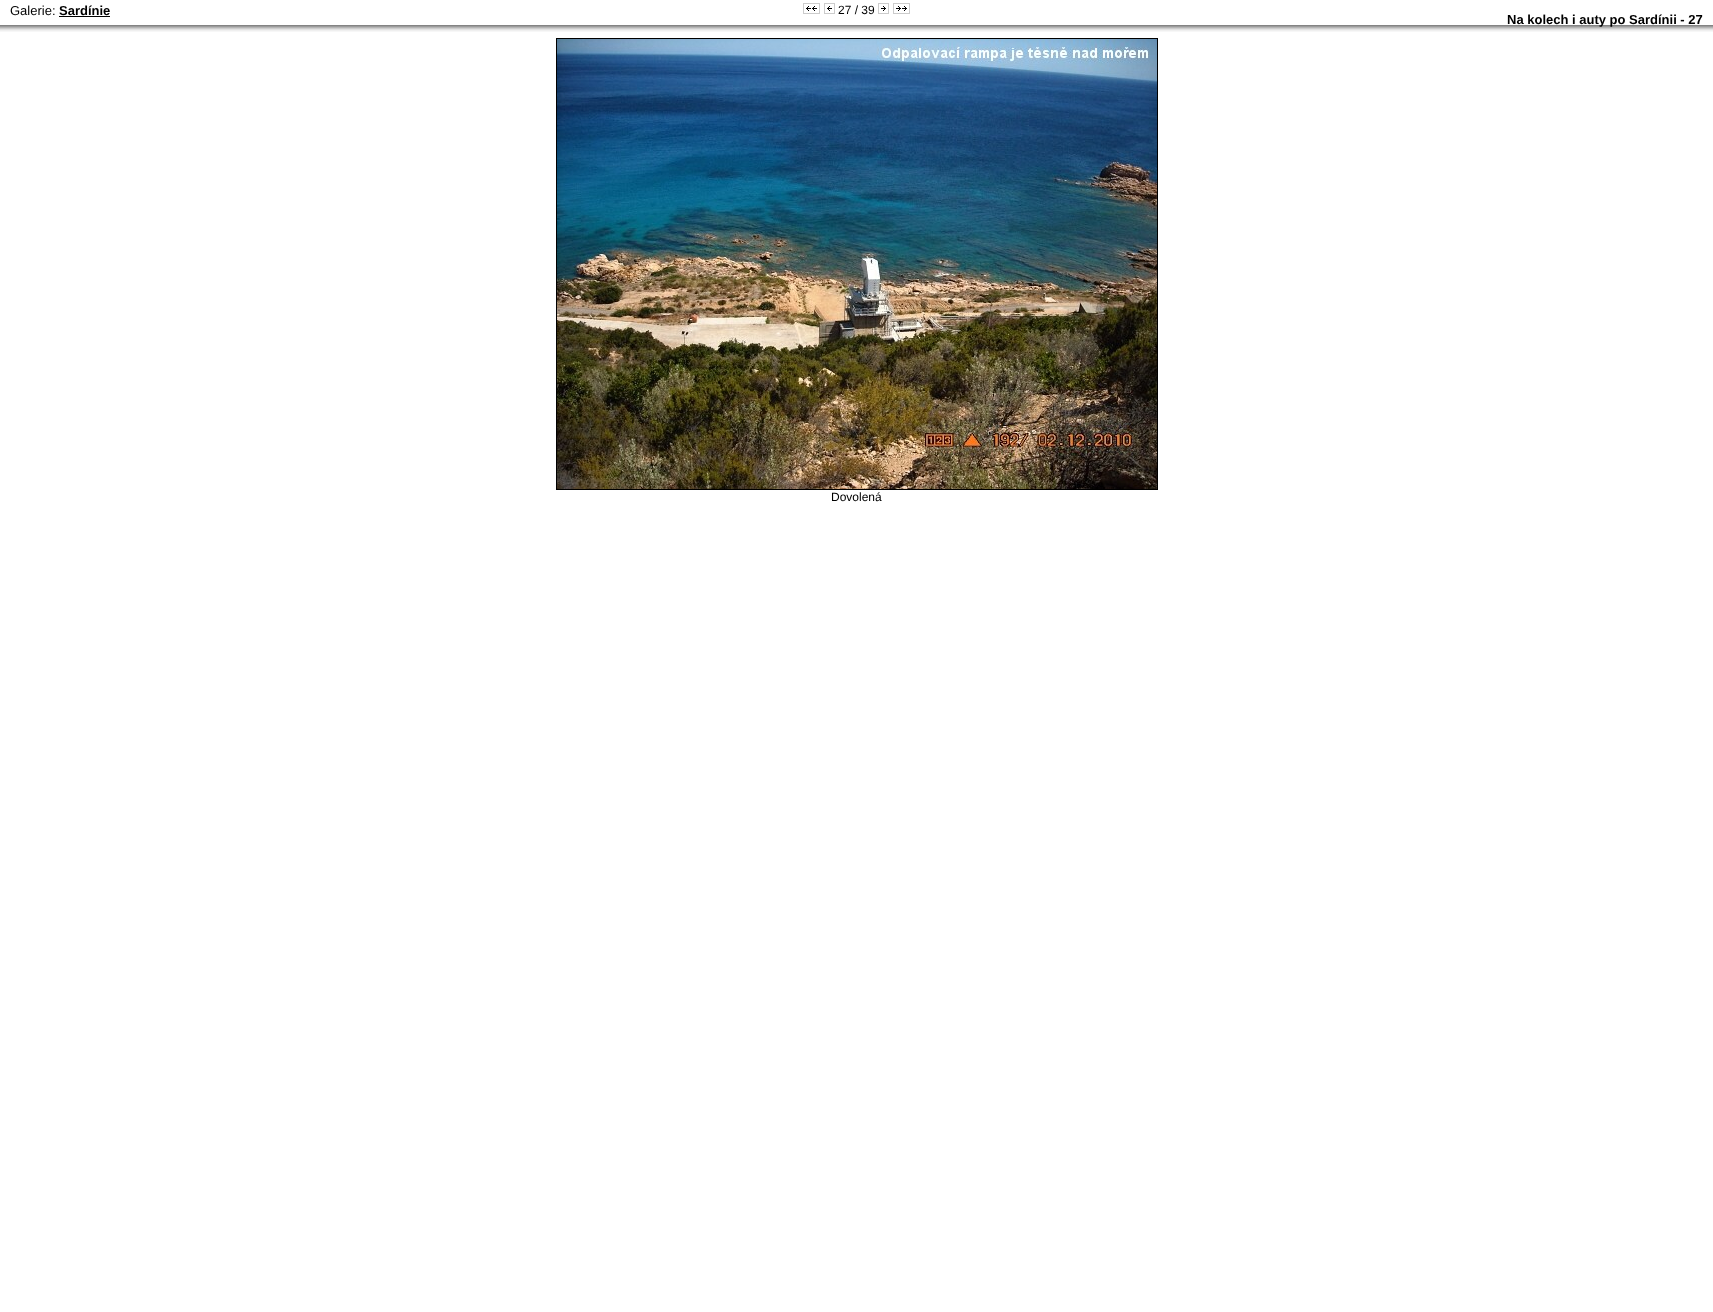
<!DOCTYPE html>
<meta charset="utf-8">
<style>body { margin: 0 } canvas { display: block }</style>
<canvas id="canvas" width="1713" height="1312"></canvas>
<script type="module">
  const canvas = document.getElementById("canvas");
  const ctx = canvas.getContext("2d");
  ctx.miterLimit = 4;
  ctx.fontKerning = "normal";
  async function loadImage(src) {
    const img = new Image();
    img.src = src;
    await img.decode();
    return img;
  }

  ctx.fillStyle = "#ffffff";
  ctx.fillRect(0, 0, 1713, 1312);
  ctx.drawImage(await loadImage("img1.png"), 0, 25, 1713, 7);
  ctx.font = "13px Liberation Sans";
  ctx.fillStyle = "#000000";
  ctx.fillText("Galerie:", 10, 15);
  ctx.font = "bold 13px Liberation Sans";
  ctx.fillText("Sardínie", 59, 15);
  ctx.fillRect(59, 16, 51, 1);
  ctx.drawImage(await loadImage("img2.png"), 803, 3, 17, 11);
  ctx.drawImage(await loadImage("img3.png"), 824, 3, 11, 11);
  ctx.font = "12px Liberation Sans";
  ctx.fillText("27 / 39", 838, 14);
  ctx.drawImage(await loadImage("img4.png"), 878, 3, 11, 11);
  ctx.drawImage(await loadImage("img5.png"), 893, 3, 17, 11);
  ctx.font = "bold 13px Liberation Sans";
  ctx.fillText("Na kolech i auty po Sardínii - 27", 1507, 24);
  ctx.strokeStyle = "#000000";
  ctx.strokeRect(556.5, 38.5, 601, 451);
  ctx.drawImage(await loadImage("img6.png"), 557, 39, 600, 450);
  ctx.font = "12px Liberation Sans";
  ctx.fillText("Dovolená", 831, 501);
</script>
